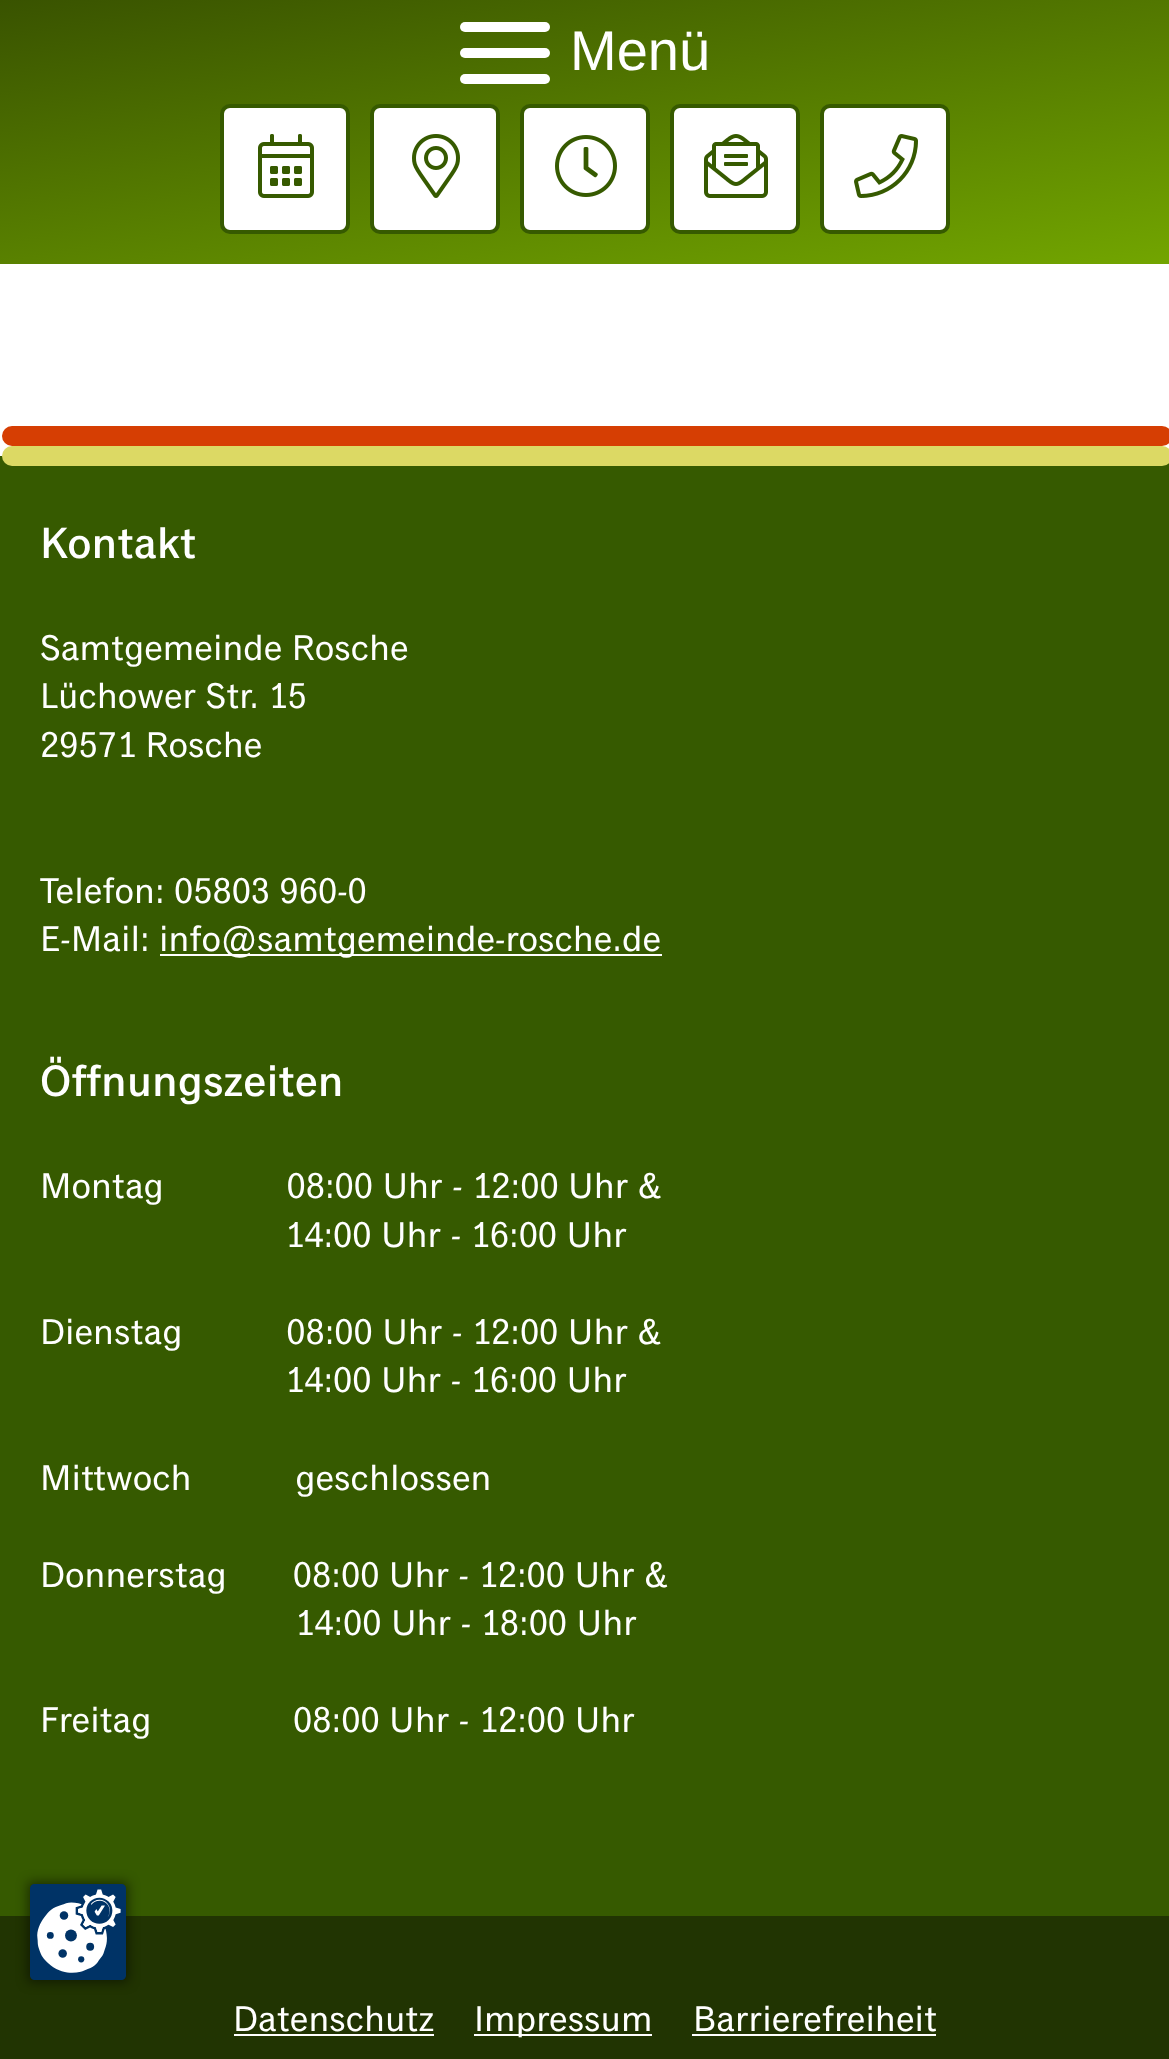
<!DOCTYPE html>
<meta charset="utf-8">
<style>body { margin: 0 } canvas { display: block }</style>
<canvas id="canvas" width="1169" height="2059"></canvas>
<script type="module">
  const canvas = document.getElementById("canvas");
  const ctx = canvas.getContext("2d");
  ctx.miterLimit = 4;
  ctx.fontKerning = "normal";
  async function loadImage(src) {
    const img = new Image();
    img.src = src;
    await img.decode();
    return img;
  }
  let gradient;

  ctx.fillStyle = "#ffffff";
  ctx.fillRect(0, 0, 1169, 2059);
  gradient = ctx.createLinearGradient(625, 360, 545, -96);
  gradient.addColorStop(0, "#72a500");
  gradient.addColorStop(1, "#395300");
  ctx.fillStyle = gradient;
  ctx.fillRect(0, 0, 1169, 264);
  ctx.fillStyle = "#ffffff";
  ctx.beginPath();
  ctx.roundRect(460, 22, 90, 10, 5);
  ctx.fill();
  ctx.beginPath();
  ctx.roundRect(460, 48, 90, 10, 5);
  ctx.fill();
  ctx.beginPath();
  ctx.roundRect(460, 74, 90, 10, 5);
  ctx.fill();
  ctx.font = "56px Liberation Sans";
  ctx.fillText("Menü", 570, 70);
  ctx.beginPath();
  ctx.roundRect(222, 106, 126, 126, 8);
  ctx.fill();
  ctx.strokeStyle = "#365a00";
  ctx.lineWidth = 4;
  ctx.stroke();
  ctx.drawImage(await loadImage("img1.png"), 258, 134, 56, 64);
  ctx.beginPath();
  ctx.roundRect(372, 106, 126, 126, 8);
  ctx.fill();
  ctx.stroke();
  ctx.drawImage(await loadImage("img2.png"), 412, 134, 48, 64);
  ctx.beginPath();
  ctx.roundRect(522, 106, 126, 126, 8);
  ctx.fill();
  ctx.stroke();
  ctx.drawImage(await loadImage("img3.png"), 555, 135, 62, 62);
  ctx.beginPath();
  ctx.roundRect(672, 106, 126, 126, 8);
  ctx.fill();
  ctx.stroke();
  ctx.drawImage(await loadImage("img4.png"), 704, 134, 64, 64);
  ctx.beginPath();
  ctx.roundRect(822, 106, 126, 126, 8);
  ctx.fill();
  ctx.stroke();
  ctx.drawImage(await loadImage("img5.png"), 854, 134, 64, 64);
  ctx.fillStyle = "#365a00";
  ctx.fillRect(0, 456, 1169, 1460);
  ctx.fillStyle = "#d63e03";
  ctx.beginPath();
  ctx.roundRect(2, 426, 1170, 20, 10);
  ctx.fill();
  ctx.fillStyle = "#dcd964";
  ctx.beginPath();
  ctx.roundRect(2, 446, 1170, 20, 10);
  ctx.fill();
  ctx.font = "500 44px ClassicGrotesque";
  ctx.fillStyle = "#ffffff";
  ctx.fillText("Kontakt", 40, 558);
  ctx.font = "36px ClassicGrotesque";
  ctx.fillText("Samtgemeinde Rosche", 40, 660);
  ctx.fillText("Lüchower Str. 15", 40, 708);
  ctx.fillText("29571 Rosche", 40, 757);
  ctx.fillText("Telefon: 05803 960-0", 40, 903);
  ctx.fillText("E-Mail:", 40, 951);
  ctx.fillRect(160, 954, 502, 2);
  ctx.fillText("info@samtgemeinde-rosche.de", 159, 951);
  ctx.font = "500 44px ClassicGrotesque";
  ctx.fillText("Öffnungszeiten", 40, 1096);
  ctx.font = "36px ClassicGrotesque";
  ctx.fillText("Montag             08:00 Uhr - 12:00 Uhr &", 40, 1198);
  ctx.fillText("14:00 Uhr - 16:00 Uhr", 285, 1247);
  ctx.fillText("Dienstag           08:00 Uhr - 12:00 Uhr &", 40, 1344);
  ctx.fillText("14:00 Uhr - 16:00 Uhr", 285, 1392);
  ctx.fillText("Mittwoch           geschlossen", 40, 1490);
  ctx.fillText("Donnerstag       08:00 Uhr - 12:00 Uhr &", 40, 1587);
  ctx.fillText("14:00 Uhr - 18:00 Uhr", 295, 1635);
  ctx.fillText("Freitag               08:00 Uhr - 12:00 Uhr", 40, 1732);
  ctx.fillStyle = "#213402";
  ctx.fillRect(0, 1916, 1169, 143);
  ctx.fillStyle = "#ffffff";
  ctx.fillText("Datenschutz", 233, 2031);
  ctx.fillRect(234, 2034, 200, 2);
  ctx.fillRect(474, 2034, 178, 2);
  ctx.fillText("Impressum", 474, 2031);
  ctx.fillText("Barrierefreiheit", 693, 2031);
  ctx.fillRect(692, 2034, 244, 2);
  ctx.fillStyle = "rgba(0, 0, 0, 0.5)";
  ctx.filter = "blur(6px)";
  ctx.beginPath();
  ctx.rect(28, 1882, 100, 100);
  ctx.fill();
  ctx.filter = "none";
  ctx.drawImage(await loadImage("img6.png"), 30, 1884, 96, 96);
</script>
